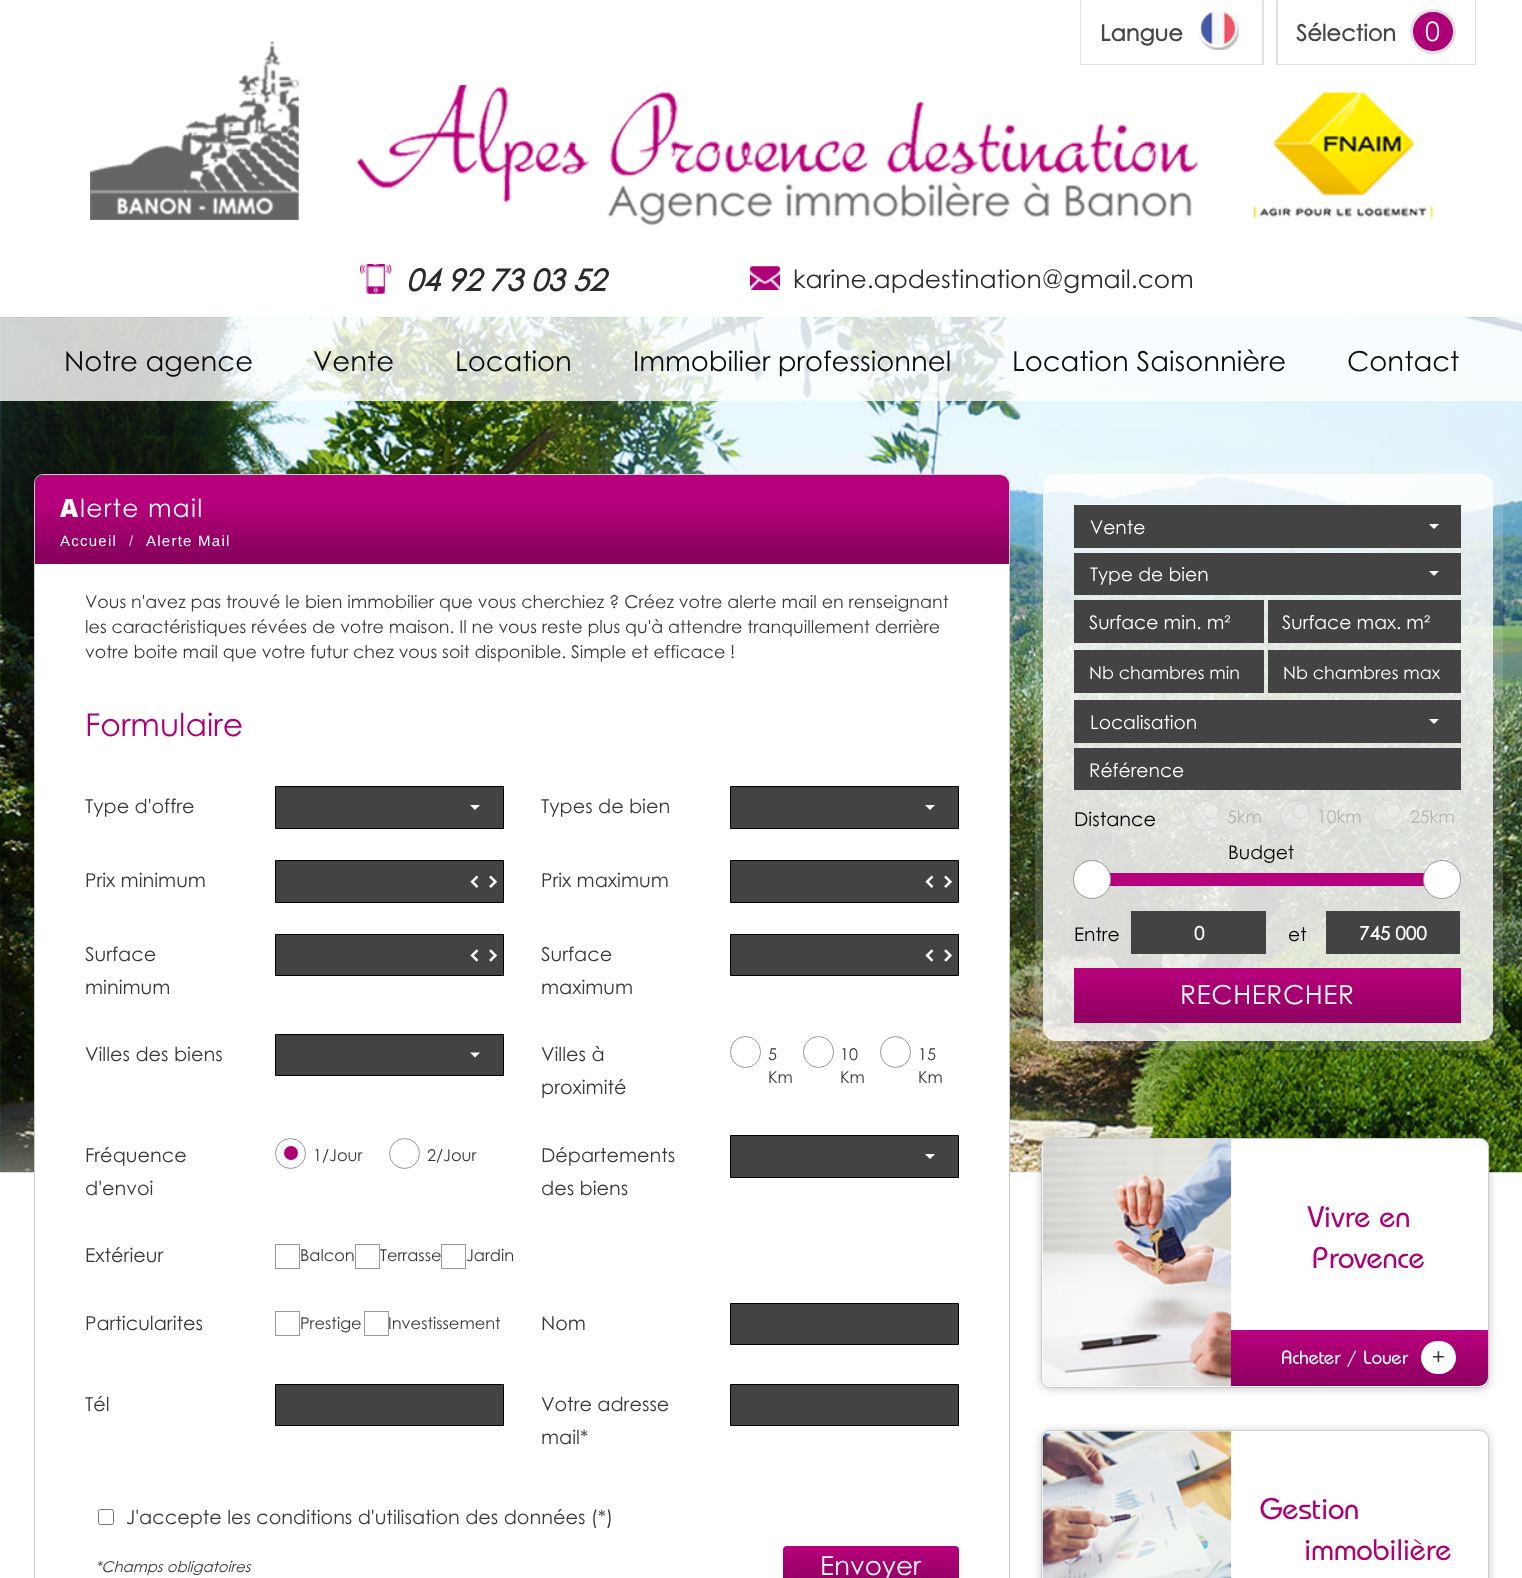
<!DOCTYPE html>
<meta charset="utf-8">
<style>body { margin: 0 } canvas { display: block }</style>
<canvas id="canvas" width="1522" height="1578"></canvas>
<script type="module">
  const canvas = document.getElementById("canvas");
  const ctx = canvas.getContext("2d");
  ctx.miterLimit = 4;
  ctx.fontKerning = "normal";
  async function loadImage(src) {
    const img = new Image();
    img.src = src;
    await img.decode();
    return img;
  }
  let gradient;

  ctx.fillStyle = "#ffffff";
  ctx.fillRect(0, 0, 1522, 1578);
  ctx.fillStyle = "#e1e1e1";
  ctx.beginPath();
  ctx.moveTo(1264, 0);
  ctx.lineTo(1264, 65);
  ctx.lineTo(1262, 64);
  ctx.lineTo(1262, 1);
  ctx.closePath();
  ctx.fill();
  ctx.fillRect(1080, 64, 184, 1);
  ctx.beginPath();
  ctx.moveTo(1080, 65);
  ctx.lineTo(1080, 0);
  ctx.lineTo(1081, 1);
  ctx.lineTo(1081, 64);
  ctx.closePath();
  ctx.fill();
  ctx.font = "bold 22.5px Century Gothic";
  ctx.fillStyle = "#474747";
  ctx.fillText("Langue", 1100, 41);
  ctx.drawImage(await loadImage("img1.png"), 1199, 11, 40, 39);
  ctx.fillStyle = "#e1e1e1";
  ctx.beginPath();
  ctx.moveTo(1476, 0);
  ctx.lineTo(1476, 65);
  ctx.lineTo(1475, 64);
  ctx.lineTo(1475, 1);
  ctx.closePath();
  ctx.fill();
  ctx.fillRect(1276, 64, 200, 1);
  ctx.beginPath();
  ctx.moveTo(1276, 65);
  ctx.lineTo(1276, 0);
  ctx.lineTo(1278, 1);
  ctx.lineTo(1278, 64);
  ctx.closePath();
  ctx.fill();
  ctx.fillStyle = "#474747";
  ctx.fillText("Sélection", 1296, 41);
  ctx.fillStyle = "#ae0076";
  ctx.beginPath();
  ctx.roundRect(1411.5, 10.5, 43, 42, 21);
  ctx.fill();
  ctx.strokeStyle = "#e1e1e1";
  ctx.lineWidth = 3;
  ctx.stroke();
  ctx.font = "27px Century Gothic";
  ctx.fillStyle = "#ffffff";
  ctx.fillText("0", 1425, 41);
  ctx.drawImage(await loadImage("img2.png"), 90, 41, 209, 179);
  ctx.drawImage(await loadImage("img3.png"), 356, 85, 842, 140);
  ctx.drawImage(await loadImage("img4.png"), 1253, 92, 180, 126);
  ctx.drawImage(await loadImage("img5.png"), 360, 264, 32, 30);
  ctx.font = "italic bold 30px Century Gothic";
  ctx.fillStyle = "#2a2a2a";
  ctx.fillText("04 92 73 03 52", 406, 291);
  ctx.drawImage(await loadImage("img6.png"), 750, 266, 30, 24);
  ctx.font = "25px Century Gothic";
  ctx.fillText("karine.apdestination@gmail.com", 793, 288);
  ctx.drawImage(await loadImage("img7.png"), 0, 317, 1522, 856);
  ctx.fillStyle = "rgba(255, 255, 255, 0.8)";
  ctx.fillRect(0, 318, 1522, 83);
  ctx.font = "27.5px Century Gothic";
  ctx.fillStyle = "#0c0c0c";
  ctx.fillText("Notre agence", 64, 371);
  ctx.fillText("Vente", 313, 371);
  ctx.fillText("Location", 455, 371);
  ctx.fillText("Immobilier professionnel", 633, 371);
  ctx.fillText("Location Saisonnière", 1012, 371);
  ctx.fillText("Contact", 1347, 371);
  ctx.beginPath();
  ctx.roundRect(34.5, 474.5, 975, 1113, 8.5);
  ctx.strokeStyle = "#cccccc";
  ctx.lineWidth = 1;
  ctx.stroke();
  gradient = ctx.createLinearGradient(522, 475, 522, 564);
  gradient.addColorStop(0.3, "#b7007c");
  gradient.addColorStop(0.9, "#89005d");
  ctx.fillStyle = gradient;
  ctx.beginPath();
  ctx.roundRect(35, 475, 974, 89, [9, 9, 0, 0]);
  ctx.fill();
  ctx.letterSpacing = "1.25px";
  ctx.font = "900 25px Noto Sans";
  ctx.fillStyle = "#ffffff";
  ctx.fillText("A", 60, 517);
  ctx.font = "25px Century Gothic";
  ctx.fillText("lerte mail", 80, 517);
  ctx.font = "15px Liberation Sans";
  ctx.fillText("Accueil", 60, 546);
  ctx.fillStyle = "#cccccc";
  ctx.fillText("/", 129, 546);
  ctx.fillStyle = "#ffffff";
  ctx.fillText("Alerte Mail", 146, 546);
  ctx.fillRect(35, 564, 974, 609);
  ctx.letterSpacing = "0px";
  ctx.font = "17.5px Century Gothic";
  ctx.fillStyle = "#383838";
  ctx.fillText("Vous n'avez pas trouvé le bien immobilier que vous cherchiez ? Créez votre alerte mail en renseignant", 85, 608);
  ctx.fillText("les caractéristiques révées de votre maison. Il ne vous reste plus qu'à attendre tranquillement derrière", 85, 633);
  ctx.fillText("votre boite mail que votre futur chez vous soit disponible. Simple et efficace !", 85, 658);
  ctx.font = "31.5px Century Gothic";
  ctx.fillStyle = "#ae0076";
  ctx.fillText("Formulaire", 85, 736);
  ctx.font = "19.25px Century Gothic";
  ctx.fillStyle = "#383838";
  ctx.fillText("Type d'offre", 85, 813);
  ctx.fillStyle = "#434343";
  ctx.beginPath();
  ctx.rect(275.5, 786.5, 228, 42);
  ctx.fill();
  ctx.strokeStyle = "#000000";
  ctx.stroke();
  ctx.fillStyle = "#ffffff";
  ctx.beginPath();
  ctx.moveTo(470, 805);
  ctx.lineTo(480, 805);
  ctx.lineTo(475, 810);
  ctx.closePath();
  ctx.fill();
  ctx.fillStyle = "#383838";
  ctx.fillText("Types de bien", 541, 813);
  ctx.fillStyle = "#434343";
  ctx.beginPath();
  ctx.rect(730.5, 786.5, 228, 42);
  ctx.fill();
  ctx.stroke();
  ctx.fillStyle = "#ffffff";
  ctx.beginPath();
  ctx.moveTo(925, 805);
  ctx.lineTo(935, 805);
  ctx.lineTo(930, 810);
  ctx.closePath();
  ctx.fill();
  ctx.fillStyle = "#383838";
  ctx.fillText("Prix minimum", 85, 887);
  ctx.fillStyle = "#434343";
  ctx.beginPath();
  ctx.rect(275.5, 860.5, 228, 42);
  ctx.fill();
  ctx.stroke();
  ctx.drawImage(await loadImage("img8.png"), 470, 875, 9, 13);
  ctx.drawImage(await loadImage("img9.png"), 489, 875, 8, 13);
  ctx.fillStyle = "#383838";
  ctx.fillText("Prix maximum", 541, 887);
  ctx.fillStyle = "#434343";
  ctx.beginPath();
  ctx.rect(730.5, 860.5, 228, 42);
  ctx.fill();
  ctx.stroke();
  ctx.drawImage(await loadImage("img8.png"), 925, 875, 9, 13);
  ctx.drawImage(await loadImage("img9.png"), 944, 875, 8, 13);
  ctx.fillStyle = "#383838";
  ctx.fillText("Surface", 85, 961);
  ctx.fillText("minimum", 85, 994);
  ctx.fillStyle = "#434343";
  ctx.beginPath();
  ctx.rect(275.5, 934.5, 228, 41);
  ctx.fill();
  ctx.stroke();
  ctx.drawImage(await loadImage("img10.png"), 470, 949, 9, 13);
  ctx.drawImage(await loadImage("img11.png"), 489, 949, 8, 13);
  ctx.fillStyle = "#383838";
  ctx.fillText("Surface", 541, 961);
  ctx.fillText("maximum", 541, 994);
  ctx.fillStyle = "#434343";
  ctx.beginPath();
  ctx.rect(730.5, 934.5, 228, 41);
  ctx.fill();
  ctx.stroke();
  ctx.drawImage(await loadImage("img10.png"), 925, 949, 9, 13);
  ctx.drawImage(await loadImage("img11.png"), 944, 949, 8, 13);
  ctx.fillStyle = "#383838";
  ctx.fillText("Villes des biens", 85, 1061);
  ctx.fillStyle = "#434343";
  ctx.beginPath();
  ctx.rect(275.5, 1034.5, 228, 41);
  ctx.fill();
  ctx.stroke();
  ctx.fillStyle = "#ffffff";
  ctx.beginPath();
  ctx.moveTo(470, 1052.5);
  ctx.lineTo(480, 1052.5);
  ctx.lineTo(475, 1057.5);
  ctx.closePath();
  ctx.fill();
  ctx.fillStyle = "#383838";
  ctx.fillText("Villes à", 541, 1061);
  ctx.fillText("proximité", 541, 1094);
  ctx.beginPath();
  ctx.roundRect(730.5, 1036.5, 30, 31, 15);
  ctx.strokeStyle = "#999999";
  ctx.stroke();
  ctx.font = "16.25px Century Gothic";
  ctx.fillText("5", 768, 1060);
  ctx.fillText("Km", 768, 1083);
  ctx.beginPath();
  ctx.roundRect(803.5, 1036.5, 30, 31, 15);
  ctx.stroke();
  ctx.fillText("10", 840, 1060);
  ctx.fillText("Km", 840, 1083);
  ctx.beginPath();
  ctx.roundRect(880.5, 1036.5, 30, 31, 15);
  ctx.stroke();
  ctx.fillText("15", 918, 1060);
  ctx.fillText("Km", 918, 1083);
  ctx.font = "19.25px Century Gothic";
  ctx.fillText("Fréquence", 85, 1162);
  ctx.fillText("d'envoi", 85, 1195);
  ctx.beginPath();
  ctx.arc(290.5, 1153.5, 15, 0, Math.PI * 2);
  ctx.stroke();
  ctx.fillStyle = "#ae0076";
  ctx.beginPath();
  ctx.arc(291, 1153, 7, 0, Math.PI * 2);
  ctx.fill();
  ctx.font = "16.25px Century Gothic";
  ctx.fillStyle = "#383838";
  ctx.fillText("1/Jour", 313, 1161);
  ctx.beginPath();
  ctx.arc(404.5, 1153.5, 15, 0, Math.PI * 2);
  ctx.stroke();
  ctx.fillText("2/Jour", 427, 1161);
  ctx.font = "19.25px Century Gothic";
  ctx.fillText("Départements", 541, 1162);
  ctx.fillText("des biens", 541, 1195);
  ctx.fillStyle = "#434343";
  ctx.beginPath();
  ctx.rect(730.5, 1135.5, 228, 42);
  ctx.fill();
  ctx.strokeStyle = "#000000";
  ctx.stroke();
  ctx.fillStyle = "#ffffff";
  ctx.beginPath();
  ctx.moveTo(925, 1154);
  ctx.lineTo(935, 1154);
  ctx.lineTo(930, 1159);
  ctx.closePath();
  ctx.fill();
  ctx.fillStyle = "#383838";
  ctx.fillText("Extérieur", 85, 1262);
  ctx.strokeStyle = "#999999";
  ctx.strokeRect(275.5, 1244.5, 24, 24);
  ctx.font = "16.25px Century Gothic";
  ctx.fillText("Balcon", 300, 1261);
  ctx.strokeRect(355.5, 1244.5, 24, 24);
  ctx.fillText("Terrasse", 380, 1261);
  ctx.strokeRect(441.5, 1244.5, 24, 24);
  ctx.fillText("Jardin", 466, 1261);
  ctx.font = "19.25px Century Gothic";
  ctx.fillText("Particularites", 85, 1330);
  ctx.strokeRect(275.5, 1311.5, 24, 24);
  ctx.font = "16.25px Century Gothic";
  ctx.fillText("Prestige", 300, 1329);
  ctx.strokeRect(364.5, 1311.5, 24, 24);
  ctx.fillText("Investissement", 388, 1329);
  ctx.font = "19.25px Century Gothic";
  ctx.fillText("Nom", 541, 1330);
  ctx.fillStyle = "#434343";
  ctx.beginPath();
  ctx.rect(730.5, 1303.5, 228, 41);
  ctx.fill();
  ctx.strokeStyle = "#000000";
  ctx.stroke();
  ctx.fillStyle = "#383838";
  ctx.fillText("Tél", 85, 1411);
  ctx.fillStyle = "#434343";
  ctx.beginPath();
  ctx.rect(275.5, 1384.5, 228, 41);
  ctx.fill();
  ctx.stroke();
  ctx.fillStyle = "#383838";
  ctx.fillText("Votre adresse", 541, 1411);
  ctx.fillText("mail*", 541, 1444);
  ctx.fillStyle = "#434343";
  ctx.beginPath();
  ctx.rect(730.5, 1384.5, 228, 41);
  ctx.fill();
  ctx.stroke();
  ctx.beginPath();
  ctx.roundRect(98.5, 1509.5, 15, 15, 2);
  ctx.strokeStyle = "#767676";
  ctx.stroke();
  ctx.fillStyle = "#383838";
  ctx.fillText("J'accepte les conditions d'utilisation des données (*)", 126, 1524);
  ctx.font = "italic 14.9px Century Gothic";
  ctx.fillText("*Champs obligatoires", 95, 1572);
  gradient = ctx.createLinearGradient(871, 1546, 871, 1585);
  gradient.addColorStop(0, "#b9007d");
  gradient.addColorStop(1, "#8e0060");
  ctx.fillStyle = gradient;
  ctx.beginPath();
  ctx.roundRect(783, 1546, 176, 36, 4);
  ctx.fill();
  ctx.font = "26.25px Century Gothic";
  ctx.fillStyle = "#ffffff";
  ctx.fillText("Envoyer", 820, 1575);
  ctx.fillStyle = "rgba(0, 0, 0, 0.2)";
  ctx.filter = "blur(5px)";
  ctx.beginPath();
  ctx.roundRect(1041, 1139, 448, 250, 9);
  ctx.fill();
  ctx.filter = "none";
  ctx.fillStyle = "#ffffff";
  ctx.beginPath();
  ctx.roundRect(1041.5, 1138.5, 447, 249, 8.5);
  ctx.fill();
  ctx.strokeStyle = "#cccccc";
  ctx.stroke();
  ctx.drawImage(await loadImage("img12.png"), 1042, 1139, 190, 247);
  ctx.font = "31.25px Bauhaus";
  ctx.fillStyle = "#ae0076";
  ctx.fillText("Vivre en", 1307, 1227);
  ctx.fillText("Provence", 1312, 1268);
  gradient = ctx.createLinearGradient(1359, 1330, 1359, 1386);
  gradient.addColorStop(0, "#b9007e");
  gradient.addColorStop(1, "#8e0060");
  ctx.fillStyle = gradient;
  ctx.beginPath();
  ctx.roundRect(1231, 1330, 257, 56, [0, 0, 9, 0]);
  ctx.fill();
  ctx.font = "20px Bauhaus";
  ctx.fillStyle = "#ffffff";
  ctx.fillText("Acheter / Louer", 1281, 1364);
  ctx.beginPath();
  ctx.roundRect(1421, 1341, 35, 33, 16.5);
  ctx.fill();
  ctx.font = "22px Liberation Sans";
  ctx.fillStyle = "#383838";
  ctx.fillText("+", 1432, 1364);
  ctx.fillStyle = "rgba(0, 0, 0, 0.2)";
  ctx.filter = "blur(5px)";
  ctx.beginPath();
  ctx.roundRect(1041, 1431, 448, 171, 9);
  ctx.fill();
  ctx.filter = "none";
  ctx.fillStyle = "#ffffff";
  ctx.beginPath();
  ctx.roundRect(1041.5, 1430.5, 447, 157, 8.5);
  ctx.fill();
  ctx.stroke();
  ctx.drawImage(await loadImage("img13.png"), 1042, 1431, 190, 147);
  ctx.font = "31.25px Bauhaus";
  ctx.fillStyle = "#ae0076";
  ctx.fillText("Gestion", 1260, 1519);
  ctx.fillText("immobilière", 1304, 1560);
  ctx.save();
  ctx.beginPath();
  ctx.moveTo(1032, 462);
  ctx.lineTo(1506, 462);
  ctx.lineTo(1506, 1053);
  ctx.lineTo(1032, 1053);
  ctx.closePath();
  ctx.moveTo(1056, 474);
  ctx.lineTo(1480, 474);
  ctx.bezierCurveTo(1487, 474, 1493, 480, 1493, 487);
  ctx.lineTo(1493, 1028);
  ctx.bezierCurveTo(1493, 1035, 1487, 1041, 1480, 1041);
  ctx.lineTo(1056, 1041);
  ctx.bezierCurveTo(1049, 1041, 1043, 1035, 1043, 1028);
  ctx.lineTo(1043, 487);
  ctx.bezierCurveTo(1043, 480, 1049, 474, 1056, 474);
  ctx.closePath();
  ctx.clip("evenodd");
  ctx.fillStyle = "rgba(255, 255, 255, 0.15)";
  ctx.filter = "blur(0.5px)";
  ctx.beginPath();
  ctx.roundRect(1035, 465, 468, 585, 21);
  ctx.fill();
  ctx.filter = "none";
  ctx.restore();
  ctx.fillStyle = "rgba(255, 255, 255, 0.84)";
  ctx.beginPath();
  ctx.roundRect(1043, 474, 450, 567, 13);
  ctx.fill();
  ctx.fillStyle = "#434343";
  ctx.fillRect(1074, 505, 387, 43);
  ctx.font = "18.75px Century Gothic";
  ctx.fillStyle = "#ffffff";
  ctx.fillText("Vente", 1090, 534);
  ctx.beginPath();
  ctx.moveTo(1429, 524);
  ctx.lineTo(1439, 524);
  ctx.lineTo(1434, 529);
  ctx.closePath();
  ctx.fill();
  ctx.fillStyle = "#434343";
  ctx.fillRect(1074, 553, 387, 42);
  ctx.fillStyle = "#ffffff";
  ctx.fillText("Type de bien", 1090, 581);
  ctx.beginPath();
  ctx.moveTo(1429, 571);
  ctx.lineTo(1439, 571);
  ctx.lineTo(1434, 576);
  ctx.closePath();
  ctx.fill();
  ctx.fillStyle = "#434343";
  ctx.fillRect(1074, 600, 190, 43);
  ctx.fillStyle = "#ffffff";
  ctx.fillText("Surface min. m²", 1089, 629);
  ctx.fillStyle = "#434343";
  ctx.fillRect(1268, 600, 193, 43);
  ctx.fillStyle = "#ffffff";
  ctx.fillText("Surface max. m²", 1282, 629);
  ctx.fillStyle = "#434343";
  ctx.fillRect(1074, 650, 190, 43);
  ctx.font = "17.5px Century Gothic";
  ctx.fillStyle = "#ffffff";
  ctx.fillText("Nb chambres min", 1089, 679);
  ctx.fillStyle = "#434343";
  ctx.fillRect(1268, 650, 193, 43);
  ctx.fillStyle = "#ffffff";
  ctx.fillText("Nb chambres max", 1283, 679);
  ctx.fillStyle = "#434343";
  ctx.fillRect(1074, 700, 387, 43);
  ctx.font = "18.75px Century Gothic";
  ctx.fillStyle = "#ffffff";
  ctx.fillText("Localisation", 1090, 729);
  ctx.beginPath();
  ctx.moveTo(1429, 719);
  ctx.lineTo(1439, 719);
  ctx.lineTo(1434, 724);
  ctx.closePath();
  ctx.fill();
  ctx.fillStyle = "#434343";
  ctx.fillRect(1074, 748, 387, 42);
  ctx.fillStyle = "#ffffff";
  ctx.fillText("Référence", 1089, 777);
  ctx.font = "19.25px Century Gothic";
  ctx.fillStyle = "#000000";
  ctx.fillText("Distance", 1074, 826);
  ctx.fillStyle = "rgba(255, 255, 255, 0.2)";
  ctx.beginPath();
  ctx.arc(1211, 811, 8, 0, Math.PI * 2);
  ctx.fill();
  ctx.beginPath();
  ctx.arc(1211, 811, 7.5, 0, Math.PI * 2);
  ctx.strokeStyle = "rgba(118, 118, 118, 0.2)";
  ctx.stroke();
  ctx.save();
  ctx.beginPath();
  ctx.roundRect(1190, 800, 31, 31, 15.5);
  ctx.clip();
  ctx.fillRect(1190, 801, 31, 29);
  ctx.restore();
  ctx.beginPath();
  ctx.arc(1205.5, 815.5, 15, 0, Math.PI * 2);
  ctx.strokeStyle = "rgba(153, 153, 153, 0.2)";
  ctx.stroke();
  ctx.font = "17.5px Century Gothic";
  ctx.fillStyle = "#b4b5b2";
  ctx.fillText("5km", 1227, 823);
  ctx.fillStyle = "rgba(255, 255, 255, 0.2)";
  ctx.beginPath();
  ctx.arc(1301, 811, 8, 0, Math.PI * 2);
  ctx.fill();
  ctx.beginPath();
  ctx.arc(1301, 811, 7.5, 0, Math.PI * 2);
  ctx.strokeStyle = "rgba(118, 118, 118, 0.2)";
  ctx.stroke();
  ctx.save();
  ctx.beginPath();
  ctx.roundRect(1280, 800, 31, 31, 15.5);
  ctx.clip();
  ctx.fillRect(1280, 801, 31, 29);
  ctx.restore();
  ctx.beginPath();
  ctx.arc(1295.5, 815.5, 15, 0, Math.PI * 2);
  ctx.strokeStyle = "rgba(153, 153, 153, 0.2)";
  ctx.stroke();
  ctx.fillStyle = "#b4b5b2";
  ctx.fillText("10km", 1317, 823);
  ctx.fillStyle = "rgba(255, 255, 255, 0.2)";
  ctx.beginPath();
  ctx.arc(1393, 811, 8, 0, Math.PI * 2);
  ctx.fill();
  ctx.beginPath();
  ctx.arc(1393, 811, 7.5, 0, Math.PI * 2);
  ctx.strokeStyle = "rgba(118, 118, 118, 0.2)";
  ctx.stroke();
  ctx.save();
  ctx.beginPath();
  ctx.roundRect(1373, 800, 31, 31, 15.5);
  ctx.clip();
  ctx.fillRect(1373, 801, 31, 29);
  ctx.restore();
  ctx.beginPath();
  ctx.arc(1388.5, 815.5, 15, 0, Math.PI * 2);
  ctx.strokeStyle = "rgba(153, 153, 153, 0.2)";
  ctx.stroke();
  ctx.fillStyle = "#b4b5b2";
  ctx.fillText("25km", 1410, 823);
  ctx.font = "18.75px Century Gothic";
  ctx.fillStyle = "#000000";
  ctx.fillText("Budget", 1228, 859);
  ctx.fillStyle = "#b4007a";
  ctx.fillRect(1110, 873, 314, 13);
  ctx.fillStyle = "#ffffff";
  ctx.beginPath();
  ctx.roundRect(1073.5, 860.5, 37, 38, 18.5);
  ctx.fill();
  ctx.strokeStyle = "#999999";
  ctx.stroke();
  ctx.beginPath();
  ctx.roundRect(1423.5, 860.5, 37, 38, 18.5);
  ctx.fill();
  ctx.stroke();
  ctx.fillStyle = "#000000";
  ctx.fillText("Entre", 1074, 941);
  ctx.fillStyle = "#434343";
  ctx.fillRect(1131, 911, 135, 43);
  ctx.font = "bold 18.75px Century Gothic";
  ctx.fillStyle = "#ffffff";
  ctx.fillText("0", 1194, 940);
  ctx.font = "18.75px Century Gothic";
  ctx.fillStyle = "#000000";
  ctx.fillText("et", 1288, 941);
  ctx.fillStyle = "#434343";
  ctx.fillRect(1326, 911, 134, 43);
  ctx.font = "bold 18.75px Century Gothic";
  ctx.fillStyle = "#ffffff";
  ctx.fillText("745 000", 1359, 940);
  gradient = ctx.createLinearGradient(1268, 968, 1268, 1023);
  gradient.addColorStop(0, "#b9007d");
  gradient.addColorStop(1, "#8e0060");
  ctx.fillStyle = gradient;
  ctx.fillRect(1074, 968, 387, 55);
  ctx.letterSpacing = "0.6px";
  ctx.font = "26.25px Century Gothic";
  ctx.fillStyle = "#ffffff";
  ctx.fillText("RECHERCHER", 1180, 1004);
</script>
